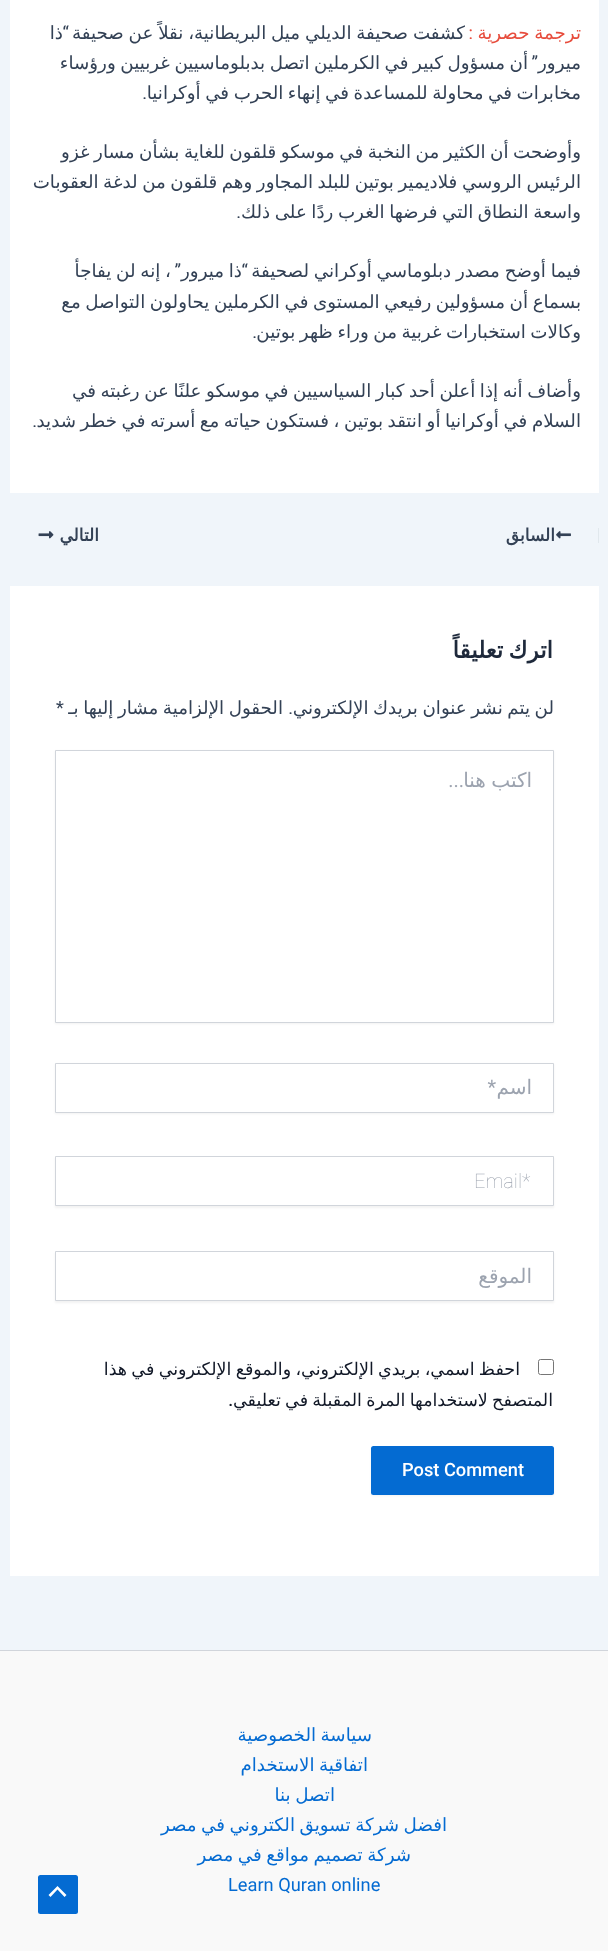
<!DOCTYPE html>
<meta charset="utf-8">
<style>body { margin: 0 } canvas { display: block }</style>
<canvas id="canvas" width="608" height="1951"></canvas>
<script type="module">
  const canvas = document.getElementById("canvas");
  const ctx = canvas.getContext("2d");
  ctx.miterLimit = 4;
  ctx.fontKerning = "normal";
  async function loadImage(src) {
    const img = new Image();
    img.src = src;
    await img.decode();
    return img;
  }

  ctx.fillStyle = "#f0f5fa";
  ctx.fillRect(0, 0, 608, 1951);
  ctx.fillStyle = "#ffffff";
  ctx.fillRect(10, 0, 589, 493);
  ctx.direction = "rtl";
  ctx.font = "18.25px Roboto";
  ctx.fillStyle = "#e74c3c";
  ctx.fillText(":", 473, 39);
  ctx.wordSpacing = "-1px";
  ctx.font = "18.25px DejaVu Sans";
  ctx.fillStyle = "#334155";
  ctx.fillText("كشفت صحيفة الديلي ميل البريطانية، نقلاً عن صحيفة", 465, 39);
  ctx.wordSpacing = "0px";
  ctx.font = "18.25px Roboto";
  ctx.fillText("“", 69, 39);
  ctx.font = "18.25px DejaVu Sans";
  ctx.fillText("ذا", 63, 39);
  ctx.wordSpacing = "-1px";
  ctx.fillStyle = "#e74c3c";
  ctx.fillText("ترجمة حصرية", 581, 39);
  ctx.wordSpacing = "-1.25px";
  ctx.fillStyle = "#334155";
  ctx.fillText("أن مسؤول كبير في الكرملين اتصل بدبلوماسيين غربيين ورؤساء", 528, 69);
  ctx.wordSpacing = "0px";
  ctx.font = "18.25px Roboto";
  ctx.fillText("”", 538, 69);
  ctx.font = "18.25px DejaVu Sans";
  ctx.fillText("ميرور", 581, 69);
  ctx.wordSpacing = "-1.25px";
  ctx.fillText("مخابرات في محاولة للمساعدة في إنهاء الحرب في أوكرانيا", 581, 99);
  ctx.wordSpacing = "0px";
  ctx.font = "18.25px Roboto";
  ctx.fillText(".", 147, 99);
  ctx.wordSpacing = "-1.25px";
  ctx.font = "18.25px DejaVu Sans";
  ctx.fillText("وأوضحت أن الكثير من النخبة في موسكو قلقون للغاية بشأن مسار غزو", 581, 158);
  ctx.fillText("الرئيس الروسي فلاديمير بوتين للبلد المجاور وهم قلقون من لدغة العقوبات", 581, 188);
  ctx.fillText("واسعة النطاق التي فرضها الغرب ردًا على ذلك", 581, 218);
  ctx.wordSpacing = "0px";
  ctx.font = "18.25px Roboto";
  ctx.fillText(".", 241, 218);
  ctx.wordSpacing = "-1px";
  ctx.font = "18.25px DejaVu Sans";
  ctx.fillText("فيما أوضح مصدر دبلوماسي أوكراني لصحيفة", 581, 277);
  ctx.wordSpacing = "0px";
  ctx.font = "18.25px Roboto";
  ctx.fillText("“", 248, 277);
  ctx.fillText("”", 181, 277);
  ctx.wordSpacing = "-1px";
  ctx.font = "18.25px DejaVu Sans";
  ctx.fillText("ذا ميرور", 242, 277);
  ctx.fillText("، إنه لن يفاجأ", 171, 277);
  ctx.wordSpacing = "-1.25px";
  ctx.fillText("بسماع أن مسؤولين رفيعي المستوى في الكرملين يحاولون التواصل مع", 581, 308);
  ctx.fillText("وكالات استخبارات غربية من وراء ظهر بوتين", 581, 338);
  ctx.wordSpacing = "0px";
  ctx.font = "18.25px Roboto";
  ctx.fillText(".", 257, 338);
  ctx.wordSpacing = "-1.25px";
  ctx.font = "18.25px DejaVu Sans";
  ctx.fillText("وأضاف أنه إذا أعلن أحد كبار السياسيين في موسكو علنًا عن رغبته في", 581, 397);
  ctx.fillText("السلام في أوكرانيا أو انتقد بوتين ، فستكون حياته مع أسرته في خطر شديد", 581, 427);
  ctx.wordSpacing = "0px";
  ctx.font = "18.25px Roboto";
  ctx.fillText(".", 37, 427);
  ctx.fillStyle = "#e1e8ed";
  ctx.fillRect(598, 528, 1, 15);
  ctx.drawImage(await loadImage("img1.png"), 556, 531, 15, 8);
  ctx.letterSpacing = "1px";
  ctx.font = "bold 17px DejaVu Sans";
  ctx.fillStyle = "#334155";
  ctx.fillText("السابق", 555, 541);
  ctx.fillText("التالي", 99, 541);
  ctx.drawImage(await loadImage("img2.png"), 38, 531, 16, 8);
  ctx.fillStyle = "#ffffff";
  ctx.fillRect(10, 586, 589, 990);
  ctx.letterSpacing = "0px";
  ctx.wordSpacing = "-2px";
  ctx.font = "bold 23px DejaVu Sans";
  ctx.fillStyle = "#1e293b";
  ctx.fillText("اترك تعليقاً", 553, 658);
  ctx.wordSpacing = "-1.25px";
  ctx.font = "18.25px DejaVu Sans";
  ctx.fillStyle = "#334155";
  ctx.fillText("لن يتم نشر عنوان بريدك الإلكتروني", 554, 714);
  ctx.fillText("الحقول الإلزامية مشار إليها بـ", 283, 714);
  ctx.wordSpacing = "0px";
  ctx.direction = "ltr";
  ctx.font = "18.25px Roboto";
  ctx.fillText("*", 56, 714);
  ctx.direction = "rtl";
  ctx.fillText(".", 293, 714);
  ctx.fillStyle = "rgba(0, 0, 0, 0.05)";
  ctx.filter = "blur(1px)";
  ctx.beginPath();
  ctx.rect(55, 751, 499, 273);
  ctx.fill();
  ctx.filter = "none";
  ctx.fillStyle = "#ffffff";
  ctx.beginPath();
  ctx.rect(55.5, 750.5, 498, 272);
  ctx.fill();
  ctx.strokeStyle = "#d1d5db";
  ctx.stroke();
  ctx.wordSpacing = "-1px";
  ctx.font = "20px DejaVu Sans";
  ctx.fillStyle = "#9ca3af";
  ctx.fillText("اكتب هنا", 532, 787);
  ctx.wordSpacing = "0px";
  ctx.font = "20px Roboto";
  ctx.fillText("...", 464, 787);
  ctx.fillStyle = "rgba(0, 0, 0, 0.05)";
  ctx.filter = "blur(1px)";
  ctx.beginPath();
  ctx.rect(55, 1064, 499, 50);
  ctx.fill();
  ctx.filter = "none";
  ctx.fillStyle = "#ffffff";
  ctx.beginPath();
  ctx.rect(55.5, 1063.5, 498, 49);
  ctx.fill();
  ctx.stroke();
  ctx.font = "20px DejaVu Sans";
  ctx.fillStyle = "#9ca3af";
  ctx.fillText("اسم", 532, 1094);
  ctx.font = "20px Roboto";
  ctx.fillText("*", 496, 1094);
  ctx.fillStyle = "rgba(0, 0, 0, 0.05)";
  ctx.filter = "blur(1px)";
  ctx.beginPath();
  ctx.rect(55, 1158, 499, 50);
  ctx.fill();
  ctx.filter = "none";
  ctx.fillStyle = "#ffffff";
  ctx.beginPath();
  ctx.rect(55.5, 1156.5, 498, 49);
  ctx.fill();
  ctx.stroke();
  ctx.direction = "ltr";
  ctx.font = "100 20px Roboto";
  ctx.fillStyle = "#9ca3af";
  ctx.fillText("Email*", 474, 1188);
  ctx.fillStyle = "rgba(0, 0, 0, 0.05)";
  ctx.filter = "blur(1px)";
  ctx.beginPath();
  ctx.rect(55, 1253, 499, 50);
  ctx.fill();
  ctx.filter = "none";
  ctx.fillStyle = "#ffffff";
  ctx.beginPath();
  ctx.rect(55.5, 1251.5, 498, 49);
  ctx.fill();
  ctx.stroke();
  ctx.direction = "rtl";
  ctx.font = "20px DejaVu Sans";
  ctx.fillStyle = "#9ca3af";
  ctx.fillText("الموقع", 532, 1283);
  ctx.beginPath();
  ctx.roundRect(538.5, 1359.5, 15, 15, 2);
  ctx.strokeStyle = "#767676";
  ctx.stroke();
  ctx.wordSpacing = "-1.25px";
  ctx.font = "17.5px DejaVu Sans";
  ctx.fillStyle = "#111827";
  ctx.fillText("احفظ اسمي، بريدي الإلكتروني، والموقع الإلكتروني في هذا", 520, 1375);
  ctx.fillText("المتصفح لاستخدامها المرة المقبلة في تعليقي", 553, 1406);
  ctx.wordSpacing = "0px";
  ctx.font = "500 17.5px Roboto";
  ctx.fillText(".", 233, 1406);
  ctx.fillStyle = "rgba(0, 0, 0, 0.05)";
  ctx.filter = "blur(1px)";
  ctx.beginPath();
  ctx.roundRect(371, 1448, 183, 48, 2.5);
  ctx.fill();
  ctx.filter = "none";
  ctx.fillStyle = "#046bd2";
  ctx.beginPath();
  ctx.roundRect(371, 1446, 183, 49, 2.5);
  ctx.fill();
  ctx.direction = "ltr";
  ctx.font = "500 18.25px Roboto";
  ctx.fillStyle = "#ffffff";
  ctx.fillText("Post Comment", 402, 1476);
  ctx.fillStyle = "#f9f9f9";
  ctx.fillRect(0, 1651, 608, 300);
  ctx.fillStyle = "#d1d5db";
  ctx.fillRect(0, 1650, 608, 1);
  ctx.wordSpacing = "-1.25px";
  ctx.direction = "rtl";
  ctx.font = "18.25px DejaVu Sans";
  ctx.fillStyle = "#046bd2";
  ctx.fillText("سياسة الخصوصية", 372, 1741);
  ctx.fillText("اتفاقية الاستخدام", 368, 1771);
  ctx.fillText("اتصل بنا", 335, 1801);
  ctx.fillText("افضل شركة تسويق الكتروني في مصر", 447, 1831);
  ctx.fillText("شركة تصميم مواقع في مصر", 411, 1861);
  ctx.wordSpacing = "0px";
  ctx.direction = "ltr";
  ctx.font = "18.25px Roboto";
  ctx.fillText("Learn Quran online", 228, 1891);
  ctx.beginPath();
  ctx.roundRect(38, 1875, 40, 39, 2.5);
  ctx.fill();
  ctx.fillStyle = "#ffffff";
  ctx.beginPath();
  ctx.moveTo(66.5, 1895);
  ctx.lineTo(57.5, 1886);
  ctx.lineTo(48.5, 1895);
  ctx.lineTo(50.5, 1897);
  ctx.lineTo(57.5, 1889.5);
  ctx.lineTo(64.5, 1897);
  ctx.closePath();
  ctx.fill();
</script>
